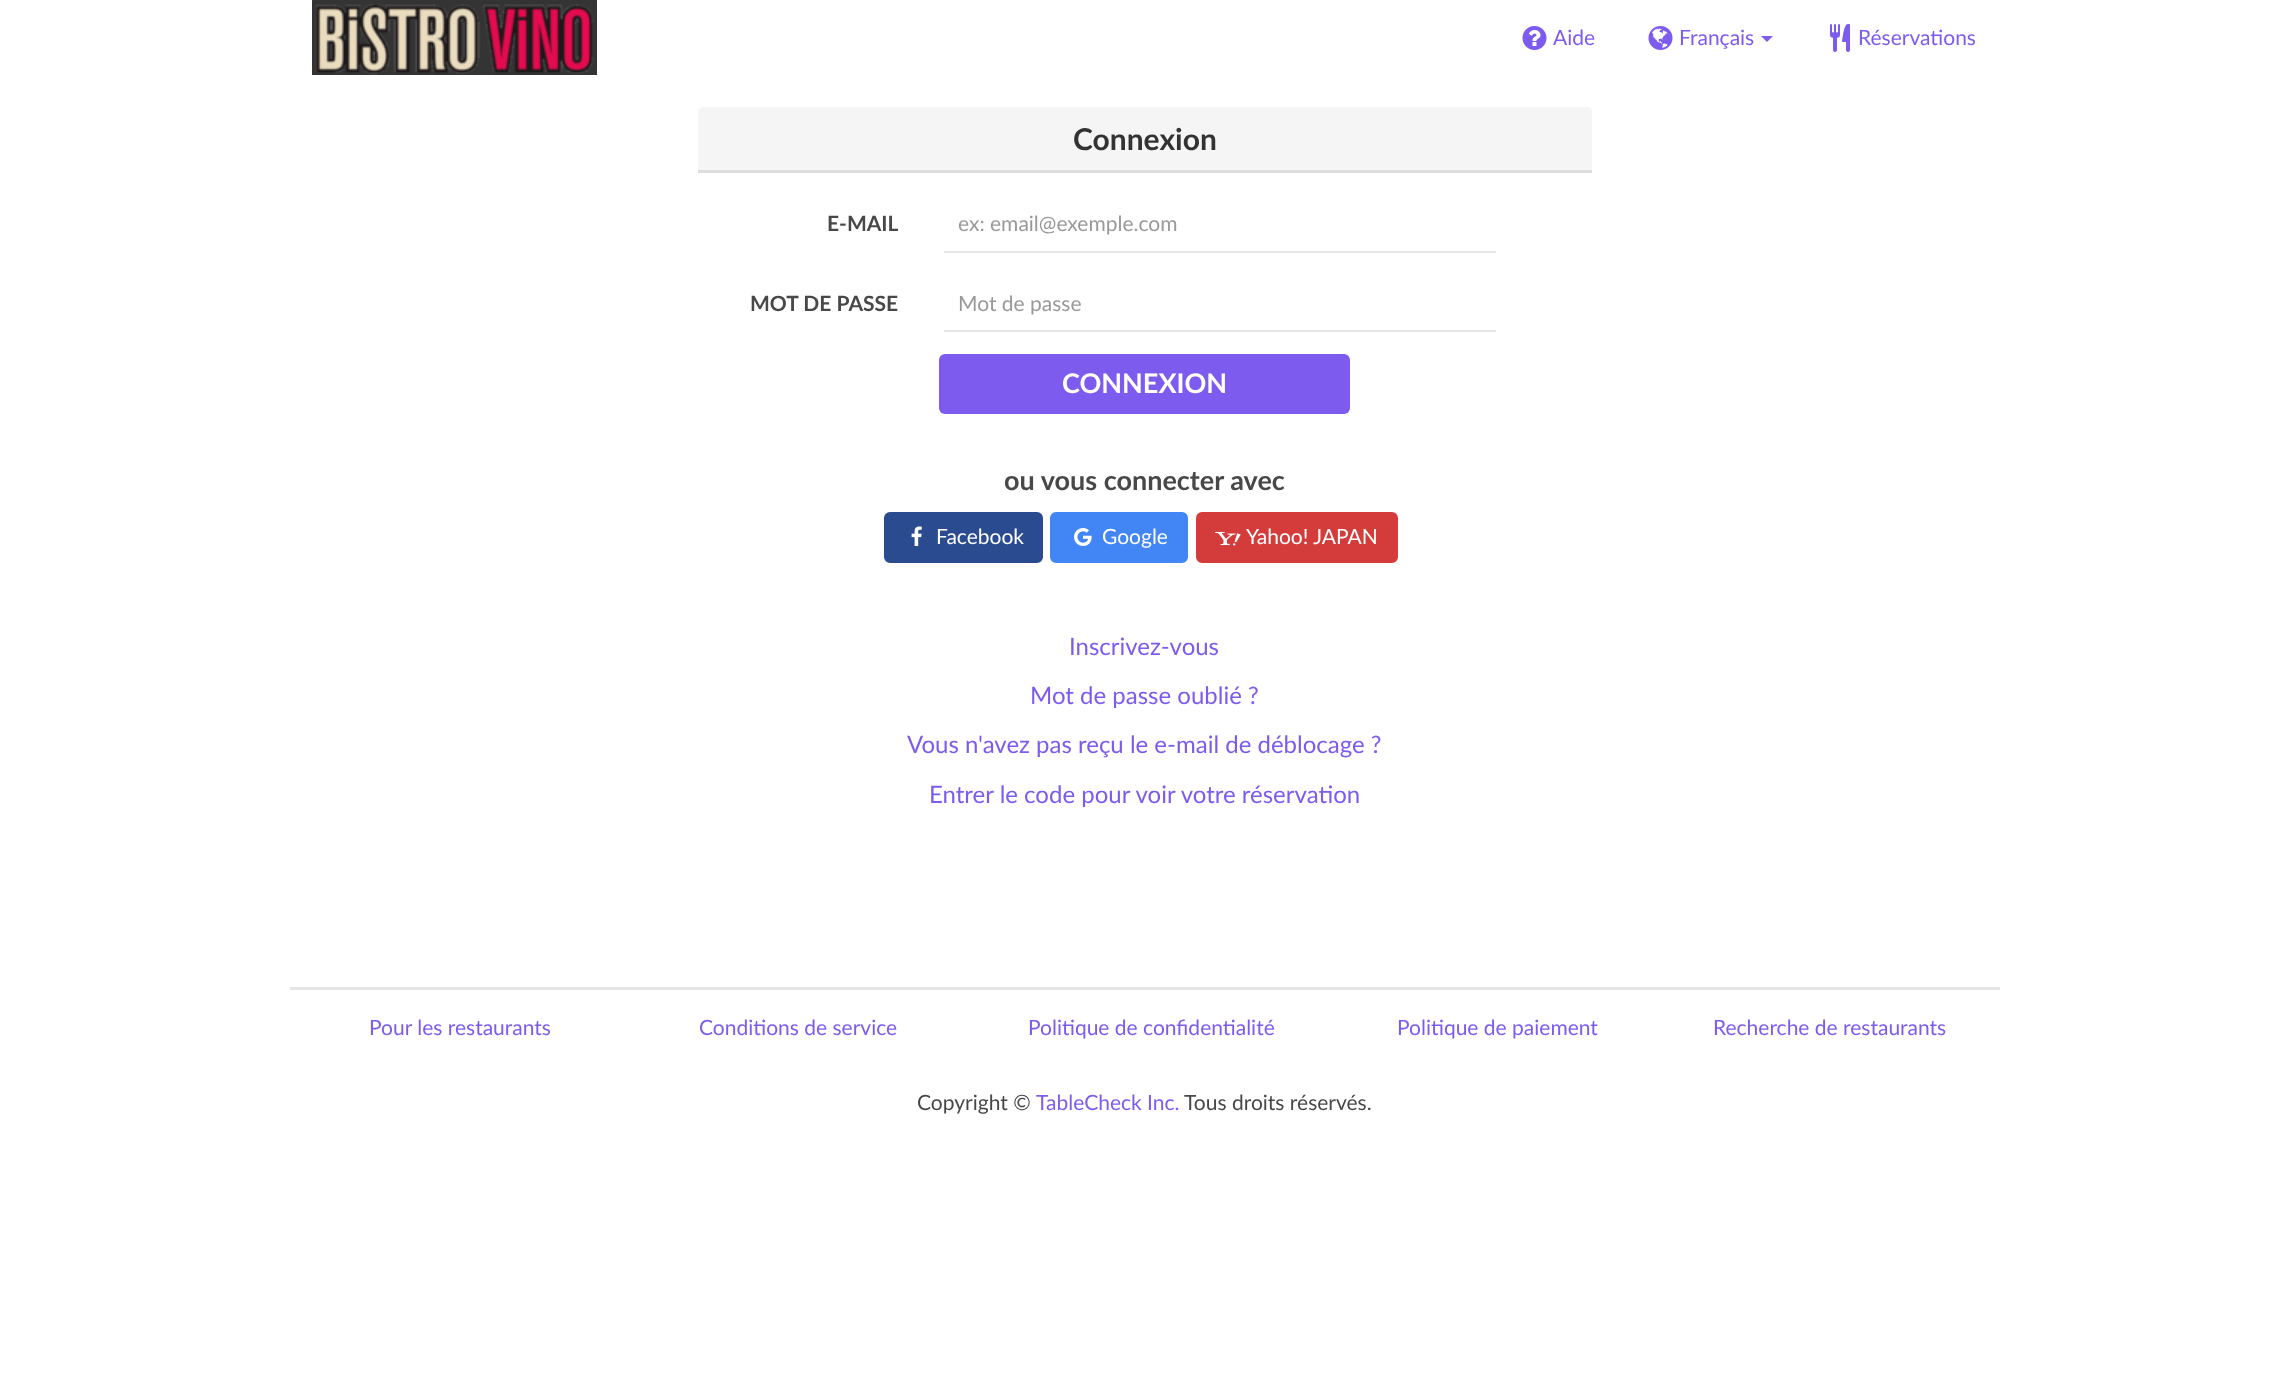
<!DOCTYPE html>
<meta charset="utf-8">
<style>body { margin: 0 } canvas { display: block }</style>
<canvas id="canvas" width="2288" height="1397"></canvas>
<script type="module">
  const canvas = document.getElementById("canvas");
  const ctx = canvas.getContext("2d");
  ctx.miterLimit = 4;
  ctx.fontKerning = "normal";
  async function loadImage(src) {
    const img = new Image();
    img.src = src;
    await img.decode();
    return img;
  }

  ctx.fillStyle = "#ffffff";
  ctx.fillRect(0, 0, 2288, 1397);
  ctx.drawImage(await loadImage("img1.png"), 312, 0, 285, 75);
  ctx.drawImage(await loadImage("img2.png"), 1522, 26, 25, 24);
  ctx.font = "21px Lato";
  ctx.fillStyle = "#7e5bef";
  ctx.fillText("Aide", 1553, 45);
  ctx.drawImage(await loadImage("img3.png"), 1648, 26, 25, 24);
  ctx.fillText("Français", 1679, 45);
  ctx.beginPath();
  ctx.moveTo(1761, 36);
  ctx.lineTo(1773, 36);
  ctx.lineTo(1767, 42);
  ctx.closePath();
  ctx.fill();
  ctx.drawImage(await loadImage("img4.png"), 1830, 24, 20, 28);
  ctx.fillText("Réservations", 1858, 45);
  ctx.fillStyle = "#f5f5f5";
  ctx.beginPath();
  ctx.roundRect(698, 107, 894, 66, [5, 5, 0, 0]);
  ctx.fill();
  ctx.fillStyle = "#dddddd";
  ctx.fillRect(698, 170, 894, 3);
  ctx.font = "bold 30px Lato";
  ctx.fillStyle = "#333333";
  ctx.fillText("Connexion", 1073, 150);
  ctx.font = "bold 21px Lato";
  ctx.fillStyle = "#484848";
  ctx.fillText("E-MAIL", 827, 231);
  ctx.fillStyle = "#e6e6e6";
  ctx.fillRect(944, 251, 552, 2);
  ctx.font = "21px Lato";
  ctx.fillStyle = "#999999";
  ctx.fillText("ex: email@exemple.com", 958, 231);
  ctx.font = "bold 21px Lato";
  ctx.fillStyle = "#484848";
  ctx.fillText("MOT DE PASSE", 750, 311);
  ctx.fillStyle = "#e6e6e6";
  ctx.fillRect(944, 330, 552, 2);
  ctx.font = "21px Lato";
  ctx.fillStyle = "#999999";
  ctx.fillText("Mot de passe", 958, 311);
  ctx.fillStyle = "#7e5bef";
  ctx.beginPath();
  ctx.roundRect(939, 354, 411, 60, 6);
  ctx.fill();
  ctx.font = "bold 27px Lato";
  ctx.fillStyle = "#ffffff";
  ctx.fillText("CONNEXION", 1062, 393);
  ctx.fillStyle = "#484848";
  ctx.fillText("ou vous connecter avec", 1004, 490);
  ctx.fillStyle = "#2b4b90";
  ctx.beginPath();
  ctx.roundRect(885, 513, 157, 49, 5);
  ctx.fill();
  ctx.strokeStyle = "#2b4b90";
  ctx.lineWidth = 2;
  ctx.stroke();
  ctx.drawImage(await loadImage("img5.png"), 911, 526, 11, 20);
  ctx.font = "21px Lato";
  ctx.fillStyle = "#ffffff";
  ctx.fillText("Facebook", 936, 544);
  ctx.fillStyle = "#4285f4";
  ctx.beginPath();
  ctx.roundRect(1051, 513, 136, 49, 5);
  ctx.fill();
  ctx.strokeStyle = "#4285f4";
  ctx.stroke();
  ctx.drawImage(await loadImage("img6.png"), 1074, 528, 18, 18);
  ctx.fillStyle = "#ffffff";
  ctx.fillText("Google", 1102, 544);
  ctx.fillStyle = "#d43c3c";
  ctx.beginPath();
  ctx.roundRect(1197, 513, 200, 49, 5);
  ctx.fill();
  ctx.strokeStyle = "#d43c3c";
  ctx.stroke();
  ctx.drawImage(await loadImage("img7.png"), 1215, 531, 26, 15);
  ctx.fillStyle = "#ffffff";
  ctx.fillText("Yahoo! JAPAN", 1246, 544);
  ctx.font = "24px Lato";
  ctx.fillStyle = "#7e5bef";
  ctx.fillText("Inscrivez-vous", 1069, 655);
  ctx.fillText("Mot de passe oublié ?", 1030, 704);
  ctx.fillText("Vous n'avez pas reçu le e-mail de déblocage ?", 907, 753);
  ctx.fillText("Entrer le code pour voir votre réservation", 929, 803);
  ctx.fillStyle = "#e6e6e6";
  ctx.fillRect(290, 987, 1710, 3);
  ctx.font = "21px Lato";
  ctx.fillStyle = "#7e5bef";
  ctx.fillText("Pour les restaurants", 369, 1035);
  ctx.fillText("Conditions de service", 699, 1035);
  ctx.fillText("Politique de confidentialité", 1028, 1035);
  ctx.fillText("Politique de paiement", 1397, 1035);
  ctx.fillText("Recherche de restaurants", 1713, 1035);
  ctx.fillStyle = "#484848";
  ctx.fillText("Copyright ©", 917, 1110);
  ctx.fillStyle = "#7e5bef";
  ctx.fillText("TableCheck Inc.", 1036, 1110);
  ctx.fillStyle = "#484848";
  ctx.fillText("Tous droits réservés.", 1184, 1110);
</script>
